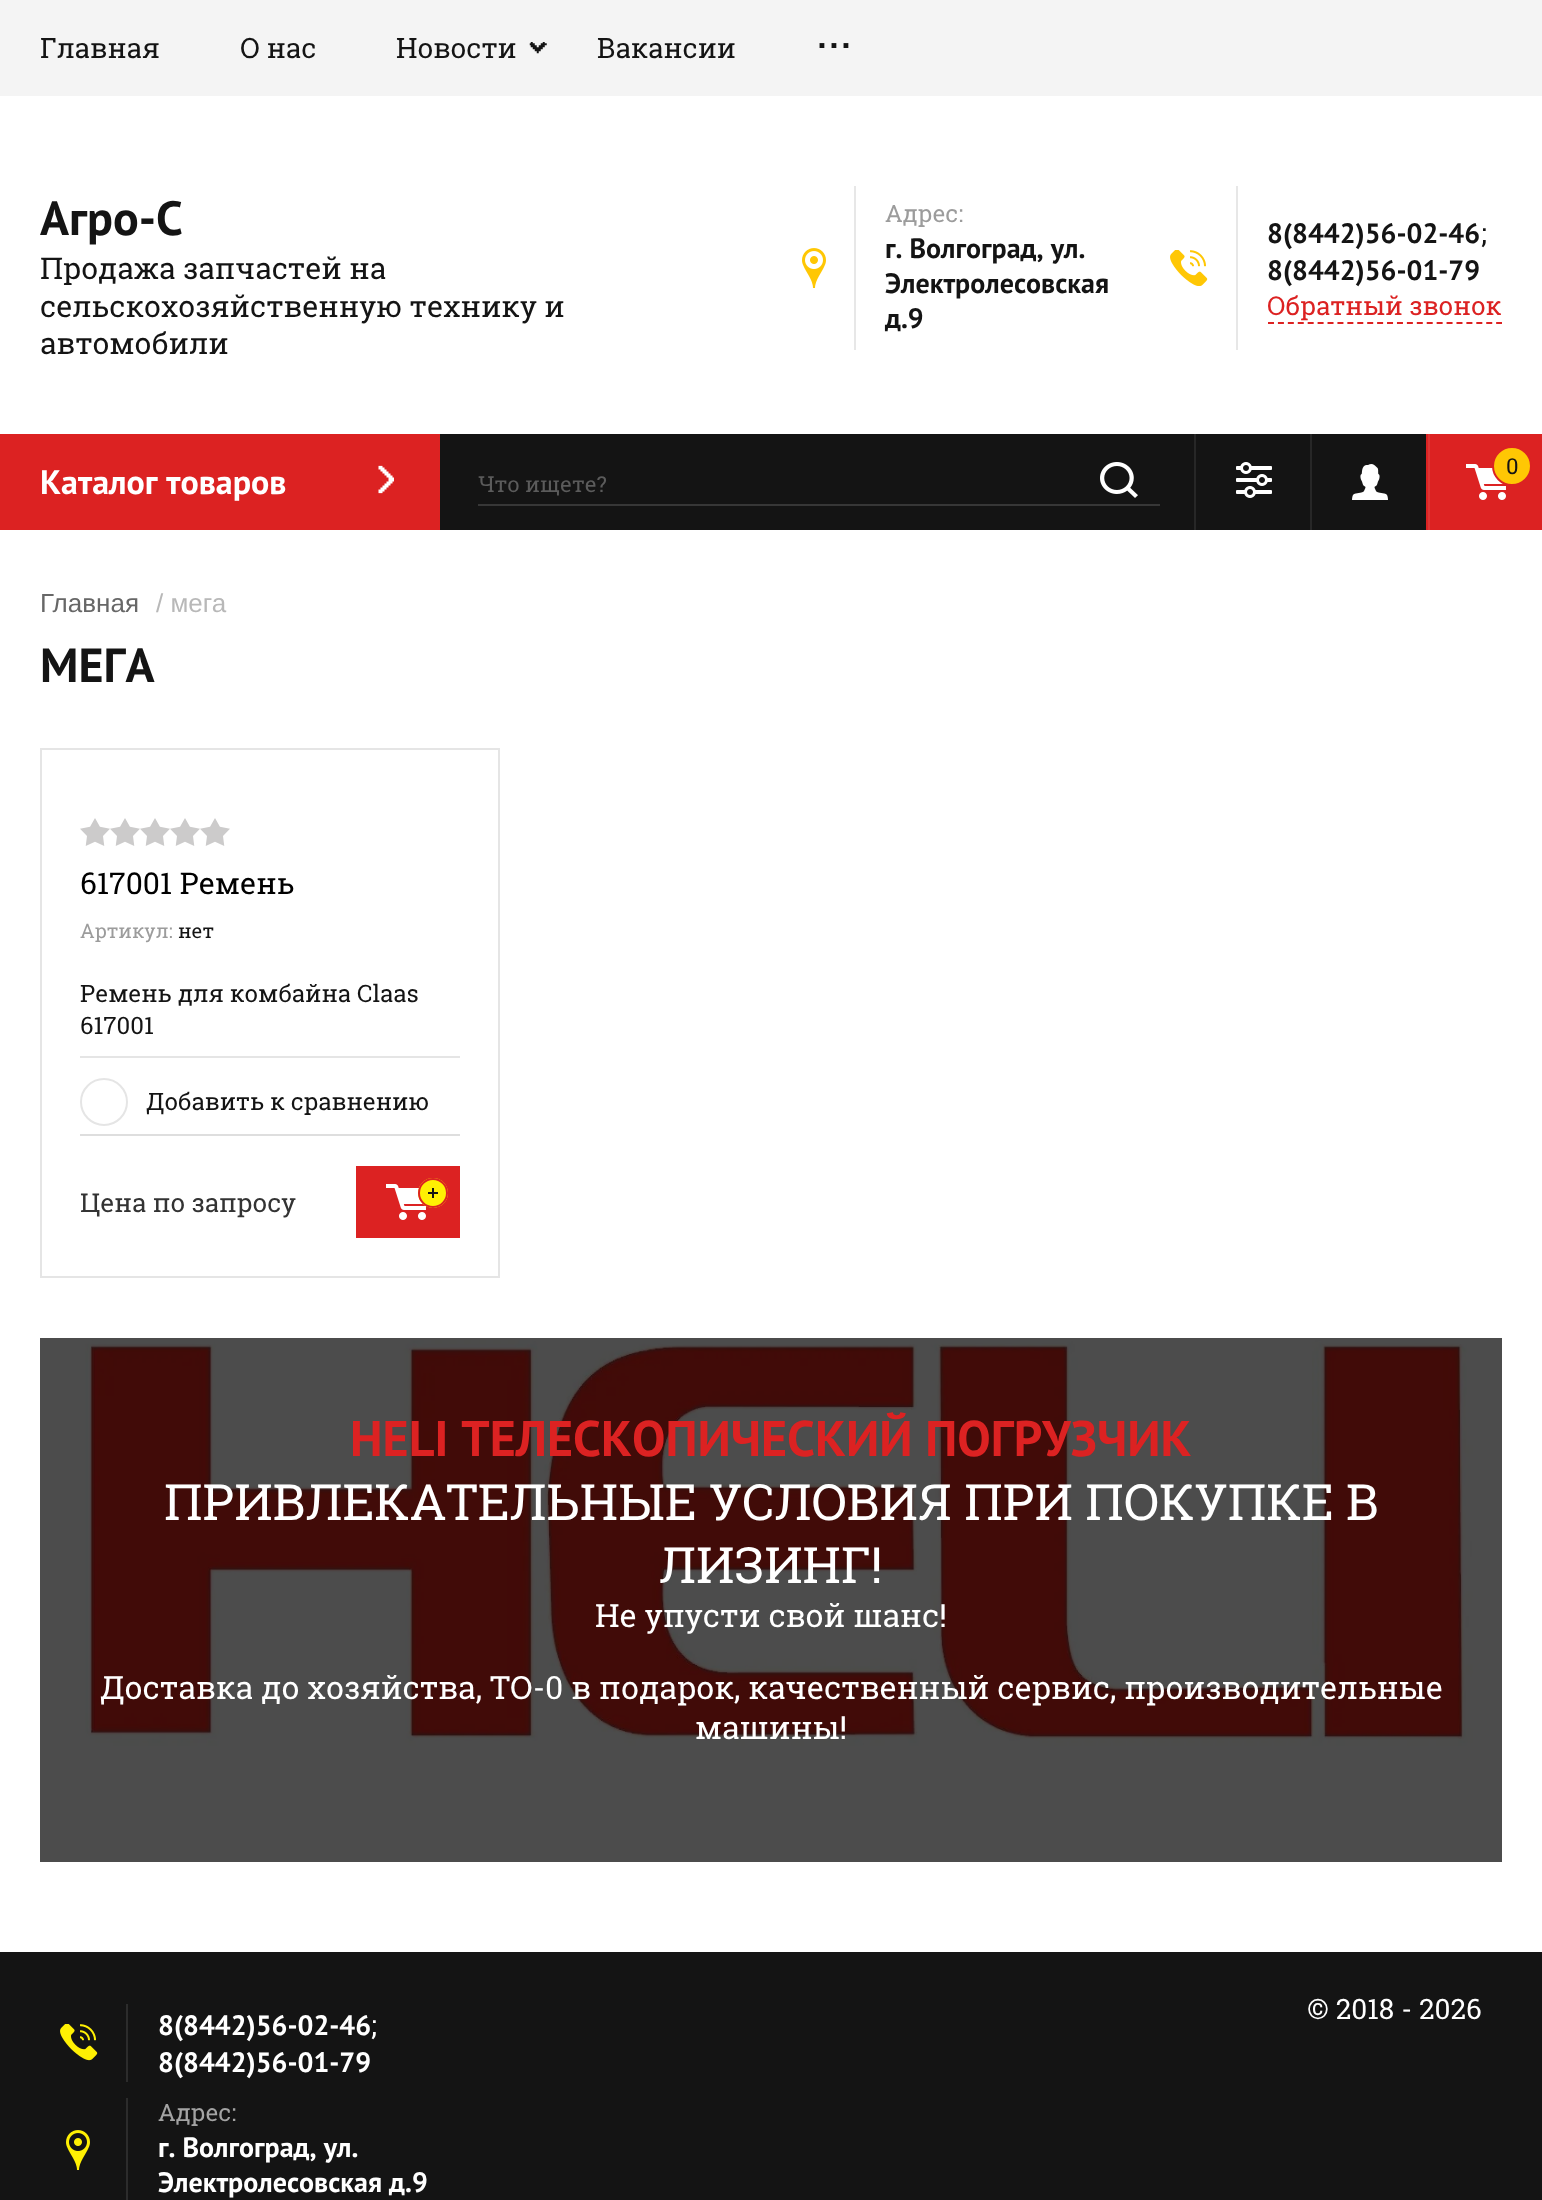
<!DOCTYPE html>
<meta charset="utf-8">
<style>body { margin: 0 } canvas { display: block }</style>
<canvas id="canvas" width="1542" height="2200"></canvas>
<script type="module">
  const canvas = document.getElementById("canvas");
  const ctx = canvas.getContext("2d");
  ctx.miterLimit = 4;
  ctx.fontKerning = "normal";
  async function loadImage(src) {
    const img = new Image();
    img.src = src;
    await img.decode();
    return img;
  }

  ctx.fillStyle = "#ffffff";
  ctx.fillRect(0, 0, 1542, 2200);
  ctx.fillStyle = "#f4f4f4";
  ctx.fillRect(0, 0, 1542, 96);
  ctx.font = "28px Roboto Slab";
  ctx.fillStyle = "#141414";
  ctx.fillText("Главная", 40, 58);
  ctx.fillText("О нас", 240, 58);
  ctx.fillText("Новости", 396, 58);
  ctx.drawImage(await loadImage("img1.png"), 529, 42, 18, 12);
  ctx.fillText("Вакансии", 597, 58);
  ctx.font = "50px Roboto Slab";
  ctx.fillText("...", 816, 48);
  ctx.font = "bold 48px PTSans";
  ctx.fillText("Агро-С", 40, 235);
  ctx.font = "30px Roboto Slab";
  ctx.fillText("Продажа запчастей на", 40, 279);
  ctx.fillText("сельскохозяйственную технику и", 40, 317);
  ctx.fillText("автомобили", 40, 354);
  ctx.fillStyle = "#e7e7e7";
  ctx.fillRect(854, 186, 2, 164);
  ctx.font = "24px Roboto Slab";
  ctx.fillStyle = "#9c9c9c";
  ctx.fillText("Адрес:", 885, 222);
  ctx.drawImage(await loadImage("img2.png"), 802, 248, 24, 40);
  ctx.font = "bold 28px PTSans";
  ctx.fillStyle = "#141414";
  ctx.fillText("г. Волгоград, ул.", 885, 258);
  ctx.fillText("Электролесовская", 885, 293);
  ctx.fillText("д.9", 885, 328);
  ctx.fillStyle = "#e7e7e7";
  ctx.fillRect(1236, 186, 2, 164);
  ctx.drawImage(await loadImage("img3.png"), 1170, 250, 38, 36);
  ctx.fillStyle = "#141414";
  ctx.fillText("8(8442)56-02-46", 1267, 243);
  ctx.font = "28px Roboto Slab";
  ctx.fillText(";", 1481, 243);
  ctx.font = "bold 28px PTSans";
  ctx.fillText("8(8442)56-01-79", 1267, 280);
  ctx.beginPath();
  ctx.moveTo(1268, 323);
  ctx.lineTo(1502, 323);
  ctx.strokeStyle = "#dc2222";
  ctx.lineWidth = 2;
  ctx.setLineDash([6, 3.92]);
  ctx.stroke();
  ctx.font = "26px Roboto Slab";
  ctx.fillStyle = "#dc2222";
  ctx.fillText("Обратный звонок", 1267, 315);
  ctx.fillStyle = "#141414";
  ctx.fillRect(440, 434, 986, 96);
  ctx.drawImage(await loadImage("img4.png"), 1236, 462, 36, 36);
  ctx.fillStyle = "#272727";
  ctx.fillRect(1194, 434, 2, 96);
  ctx.drawImage(await loadImage("img5.png"), 1352, 464, 36, 36);
  ctx.fillStyle = "#dc2222";
  ctx.fillRect(1426, 434, 116, 96);
  ctx.fillStyle = "#df3434";
  ctx.fillRect(1428, 434, 2, 96);
  ctx.fillStyle = "#272727";
  ctx.fillRect(1310, 434, 2, 96);
  ctx.drawImage(await loadImage("img6.png"), 1466, 464, 40, 36);
  ctx.fillStyle = "#ffc704";
  ctx.beginPath();
  ctx.arc(1512, 466, 19, 0, Math.PI * 2);
  ctx.fill();
  ctx.setLineDash([]);
  ctx.stroke();
  ctx.font = "22px Roboto Slab";
  ctx.fillStyle = "#141414";
  ctx.fillText("0", 1506, 474);
  ctx.fillStyle = "#dc2222";
  ctx.fillRect(0, 434, 440, 96);
  ctx.font = "bold 34px PTSans";
  ctx.fillStyle = "#ffffff";
  ctx.fillText("Каталог товаров", 40, 494);
  ctx.drawImage(await loadImage("img7.png"), 378, 465, 16, 29);
  ctx.fillStyle = "#373737";
  ctx.fillRect(478, 504, 682, 2);
  ctx.font = "22px Roboto Slab";
  ctx.fillStyle = "#5b5b5b";
  ctx.fillText("Что ищете?", 478, 492);
  ctx.drawImage(await loadImage("img8.png"), 1100, 462, 38, 36);
  ctx.font = "26px Liberation Sans";
  ctx.fillStyle = "#676767";
  ctx.fillText("Главная", 40, 612);
  ctx.fillStyle = "#b8b8b8";
  ctx.fillText("/ мега", 156, 612);
  ctx.font = "bold 48px PTSans";
  ctx.fillStyle = "#141414";
  ctx.fillText("МЕГА", 40, 682);
  ctx.strokeStyle = "#e5e5e5";
  ctx.strokeRect(41, 749, 458, 528);
  ctx.drawImage(await loadImage("img9.png"), 80, 818, 150, 28);
  ctx.font = "30px Roboto Slab";
  ctx.fillStyle = "#000000";
  ctx.fillText("617001 Ремень", 80, 894);
  ctx.font = "20px Roboto Slab";
  ctx.fillStyle = "#9c9c9c";
  ctx.fillText("Артикул:", 80, 938);
  ctx.fillStyle = "#141414";
  ctx.fillText("нет", 178, 938);
  ctx.font = "24px Roboto Slab";
  ctx.fillText("Ремень для комбайна Claas", 80, 1002);
  ctx.fillText("617001", 80, 1034);
  ctx.fillStyle = "#e5e5e5";
  ctx.fillRect(80, 1056, 380, 2);
  ctx.beginPath();
  ctx.arc(104, 1102, 23, 0, Math.PI * 2);
  ctx.stroke();
  ctx.fillStyle = "#141414";
  ctx.fillText("Добавить к сравнению", 146, 1110);
  ctx.fillStyle = "#dedede";
  ctx.fillRect(80, 1134, 380, 2);
  ctx.font = "26px Roboto Slab";
  ctx.fillStyle = "#333333";
  ctx.fillText("Цена по запросу", 80, 1212);
  ctx.fillStyle = "#dc2222";
  ctx.fillRect(356, 1166, 104, 72);
  ctx.drawImage(await loadImage("img10.png"), 386, 1184, 40, 36);
  ctx.fillStyle = "#fff003";
  ctx.beginPath();
  ctx.arc(433, 1193, 15, 0, Math.PI * 2);
  ctx.fill();
  ctx.drawImage(await loadImage("img11.png"), 428, 1188, 10, 10);
  ctx.beginPath();
  ctx.arc(433, 1193, 14, 0, Math.PI * 2);
  ctx.strokeStyle = "#dc2222";
  ctx.stroke();
  ctx.drawImage(await loadImage("img12.png"), 85, 1340, 1388, 406);
  ctx.fillStyle = "rgba(0, 0, 0, 0.7)";
  ctx.fillRect(40, 1338, 1462, 524);
  ctx.font = "bold 50px PTSans";
  ctx.fillStyle = "#dc2222";
  ctx.fillText("HELI ТЕЛЕСКОПИЧЕСКИЙ ПОГРУЗЧИК", 350, 1456);
  ctx.font = "50px Roboto Slab";
  ctx.fillStyle = "#ffffff";
  ctx.fillText("ПРИВЛЕКАТЕЛЬНЫЕ УСЛОВИЯ ПРИ ПОКУПКЕ В", 164, 1520);
  ctx.fillText("ЛИЗИНГ!", 659, 1583);
  ctx.font = "32px Roboto Slab";
  ctx.fillText("Не упусти свой шанс!", 595, 1627);
  ctx.fillText("Доставка до хозяйства, ТО-0 в подарок, качественный сервис, производительные", 100, 1699);
  ctx.fillText("машины!", 695, 1739);
  ctx.fillStyle = "#141414";
  ctx.fillRect(0, 1952, 1542, 248);
  ctx.font = "28px Roboto Slab";
  ctx.fillStyle = "#ffffff";
  ctx.fillText("© 2018 - 2026", 1307, 2019);
  ctx.fillStyle = "#2c2c2c";
  ctx.fillRect(126, 2004, 2, 78);
  ctx.drawImage(await loadImage("img13.png"), 60, 2024, 38, 37);
  ctx.font = "bold 28px PTSans";
  ctx.fillStyle = "#ffffff";
  ctx.fillText("8(8442)56-02-46", 158, 2035);
  ctx.font = "28px Roboto Slab";
  ctx.fillText(";", 371, 2035);
  ctx.font = "bold 28px PTSans";
  ctx.fillText("8(8442)56-01-79", 158, 2072);
  ctx.fillStyle = "#2c2c2c";
  ctx.fillRect(126, 2098, 2, 102);
  ctx.font = "24px Roboto Slab";
  ctx.fillStyle = "#a3a3a3";
  ctx.fillText("Адрес:", 158, 2121);
  ctx.drawImage(await loadImage("img14.png"), 66, 2130, 24, 40);
  ctx.font = "bold 28px PTSans";
  ctx.fillStyle = "#ffffff";
  ctx.fillText("г. Волгоград, ул.", 158, 2157);
  ctx.fillText("Электролесовская д.9", 158, 2192);
</script>
